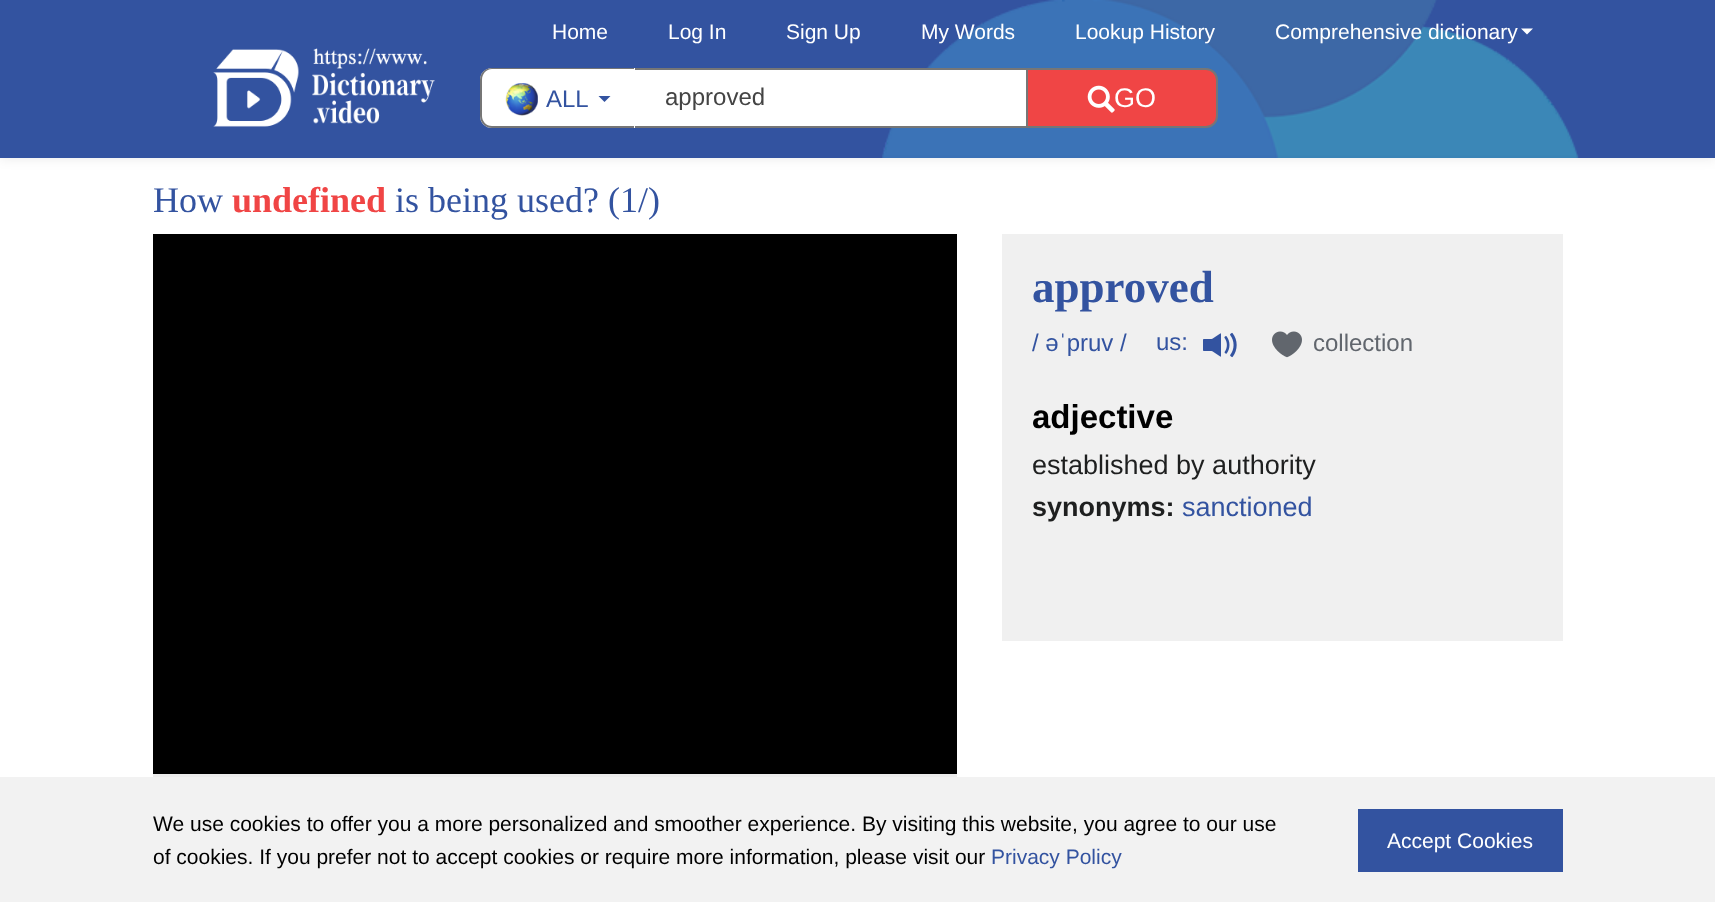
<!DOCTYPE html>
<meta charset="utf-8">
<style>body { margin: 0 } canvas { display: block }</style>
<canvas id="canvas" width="1715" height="902"></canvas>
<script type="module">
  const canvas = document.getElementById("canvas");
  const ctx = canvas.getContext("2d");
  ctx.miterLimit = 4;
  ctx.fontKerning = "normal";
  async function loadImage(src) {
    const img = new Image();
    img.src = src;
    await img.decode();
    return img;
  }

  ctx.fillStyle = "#ffffff";
  ctx.fillRect(0, 0, 1715, 902);
  ctx.fillStyle = "rgba(0, 0, 0, 0.08)";
  ctx.filter = "blur(6px)";
  ctx.beginPath();
  ctx.rect(0, 2, 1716, 157);
  ctx.fill();
  ctx.filter = "none";
  ctx.fillStyle = "#3353a0";
  ctx.fillRect(0, 0, 1715, 158);
  ctx.drawImage(await loadImage("img1.png"), 882, 0, 697, 158);
  ctx.font = "21px Liberation Sans";
  ctx.fillStyle = "#ffffff";
  ctx.fillText("Home", 552, 39);
  ctx.fillText("Log In", 668, 39);
  ctx.fillText("Sign Up", 786, 39);
  ctx.fillText("My Words", 921, 39);
  ctx.fillText("Lookup History", 1075, 39);
  ctx.fillText("Comprehensive dictionary", 1275, 39);
  ctx.beginPath();
  ctx.moveTo(1521, 28.5);
  ctx.lineTo(1533, 28.5);
  ctx.lineTo(1527, 34.5);
  ctx.closePath();
  ctx.fill();
  ctx.drawImage(await loadImage("img2.png"), 213, 48, 222, 79);
  ctx.beginPath();
  ctx.roundRect(480, 68, 155, 60, [12, 0, 0, 12]);
  ctx.fill();
  ctx.fillStyle = "#767676";
  ctx.beginPath();
  ctx.moveTo(492, 68);
  ctx.lineTo(634, 68);
  ctx.lineTo(634, 128);
  ctx.lineTo(492, 128);
  ctx.bezierCurveTo(485, 128, 480, 122, 480, 116);
  ctx.lineTo(480, 80);
  ctx.bezierCurveTo(480, 73, 485, 68, 492, 68);
  ctx.closePath();
  ctx.moveTo(492, 69);
  ctx.lineTo(634, 69);
  ctx.lineTo(634, 126);
  ctx.lineTo(492, 126);
  ctx.bezierCurveTo(486, 126, 482, 121, 482, 116);
  ctx.lineTo(482, 80);
  ctx.bezierCurveTo(482, 74, 486, 69, 492, 69);
  ctx.closePath();
  ctx.fill("evenodd");
  ctx.drawImage(await loadImage("img3.png"), 505, 83, 33, 33);
  ctx.font = "24px Liberation Sans";
  ctx.fillStyle = "#3353a0";
  ctx.fillText("ALL", 546, 107);
  ctx.beginPath();
  ctx.moveTo(598.5, 96);
  ctx.lineTo(610.5, 96);
  ctx.lineTo(604.5, 102);
  ctx.closePath();
  ctx.fill();
  ctx.fillStyle = "#ffffff";
  ctx.fillRect(635, 70, 391, 56);
  ctx.fillStyle = "#767676";
  ctx.fillRect(635, 68, 393, 2);
  ctx.fillRect(635, 126, 393, 2);
  ctx.fillStyle = "#444444";
  ctx.fillText("approved", 665, 105);
  ctx.fillStyle = "#f04545";
  ctx.beginPath();
  ctx.roundRect(1027, 69, 190, 58, [0, 11, 11, 0]);
  ctx.fill();
  ctx.strokeStyle = "#767676";
  ctx.lineWidth = 2;
  ctx.stroke();
  ctx.drawImage(await loadImage("img4.png"), 1087, 85, 28, 28);
  ctx.font = "27px Liberation Sans";
  ctx.fillStyle = "#ffffff";
  ctx.fillText("GO", 1114, 107);
  ctx.font = "36px Liberation Serif";
  ctx.fillStyle = "#3353a0";
  ctx.fillText("How", 153, 212);
  ctx.font = "bold 36px Liberation Serif";
  ctx.fillStyle = "#f04545";
  ctx.fillText("undefined", 232, 212);
  ctx.font = "36px Liberation Serif";
  ctx.fillStyle = "#3353a0";
  ctx.fillText("is being used? (1/)", 395, 212);
  ctx.fillStyle = "#000000";
  ctx.fillRect(153, 234, 804, 540);
  ctx.fillStyle = "#ececec";
  ctx.fillRect(153, 774, 804, 3);
  ctx.fillStyle = "#f0f0f0";
  ctx.fillRect(1002, 234, 561, 407);
  ctx.font = "bold 45px Liberation Serif";
  ctx.fillStyle = "#3353a0";
  ctx.fillText("approved", 1032, 302);
  ctx.font = "24px Liberation Sans";
  ctx.fillText("/ əˈpruv /", 1032, 351);
  ctx.fillText("us:", 1156, 350);
  ctx.drawImage(await loadImage("img5.png"), 1203, 332, 34, 26);
  ctx.drawImage(await loadImage("img6.png"), 1272, 331, 30, 27);
  ctx.fillStyle = "#61666d";
  ctx.fillText("collection", 1313, 351);
  ctx.font = "bold 33px Liberation Sans";
  ctx.fillStyle = "#000000";
  ctx.fillText("adjective", 1032, 428);
  ctx.font = "27px Liberation Sans";
  ctx.fillStyle = "#1e1f1f";
  ctx.fillText("established by authority", 1032, 474);
  ctx.font = "bold 27px Liberation Sans";
  ctx.fillText("synonyms:", 1032, 516);
  ctx.font = "27px Liberation Sans";
  ctx.fillStyle = "#3353a0";
  ctx.fillText("sanctioned", 1182, 516);
  ctx.fillStyle = "#f2f2f2";
  ctx.fillRect(0, 777, 1715, 125);
  ctx.font = "21px Liberation Sans";
  ctx.fillStyle = "#000000";
  ctx.fillText("We use cookies to offer you a more personalized and smoother experience. By visiting this website, you agree to our use", 153, 831);
  ctx.fillText("of cookies. If you prefer not to accept cookies or require more information, please visit our", 153, 864);
  ctx.fillStyle = "#3353a0";
  ctx.fillText("Privacy Policy", 991, 864);
  ctx.fillRect(1358, 809, 205, 63);
  ctx.fillStyle = "#ffffff";
  ctx.fillText("Accept Cookies", 1387, 848);
</script>
